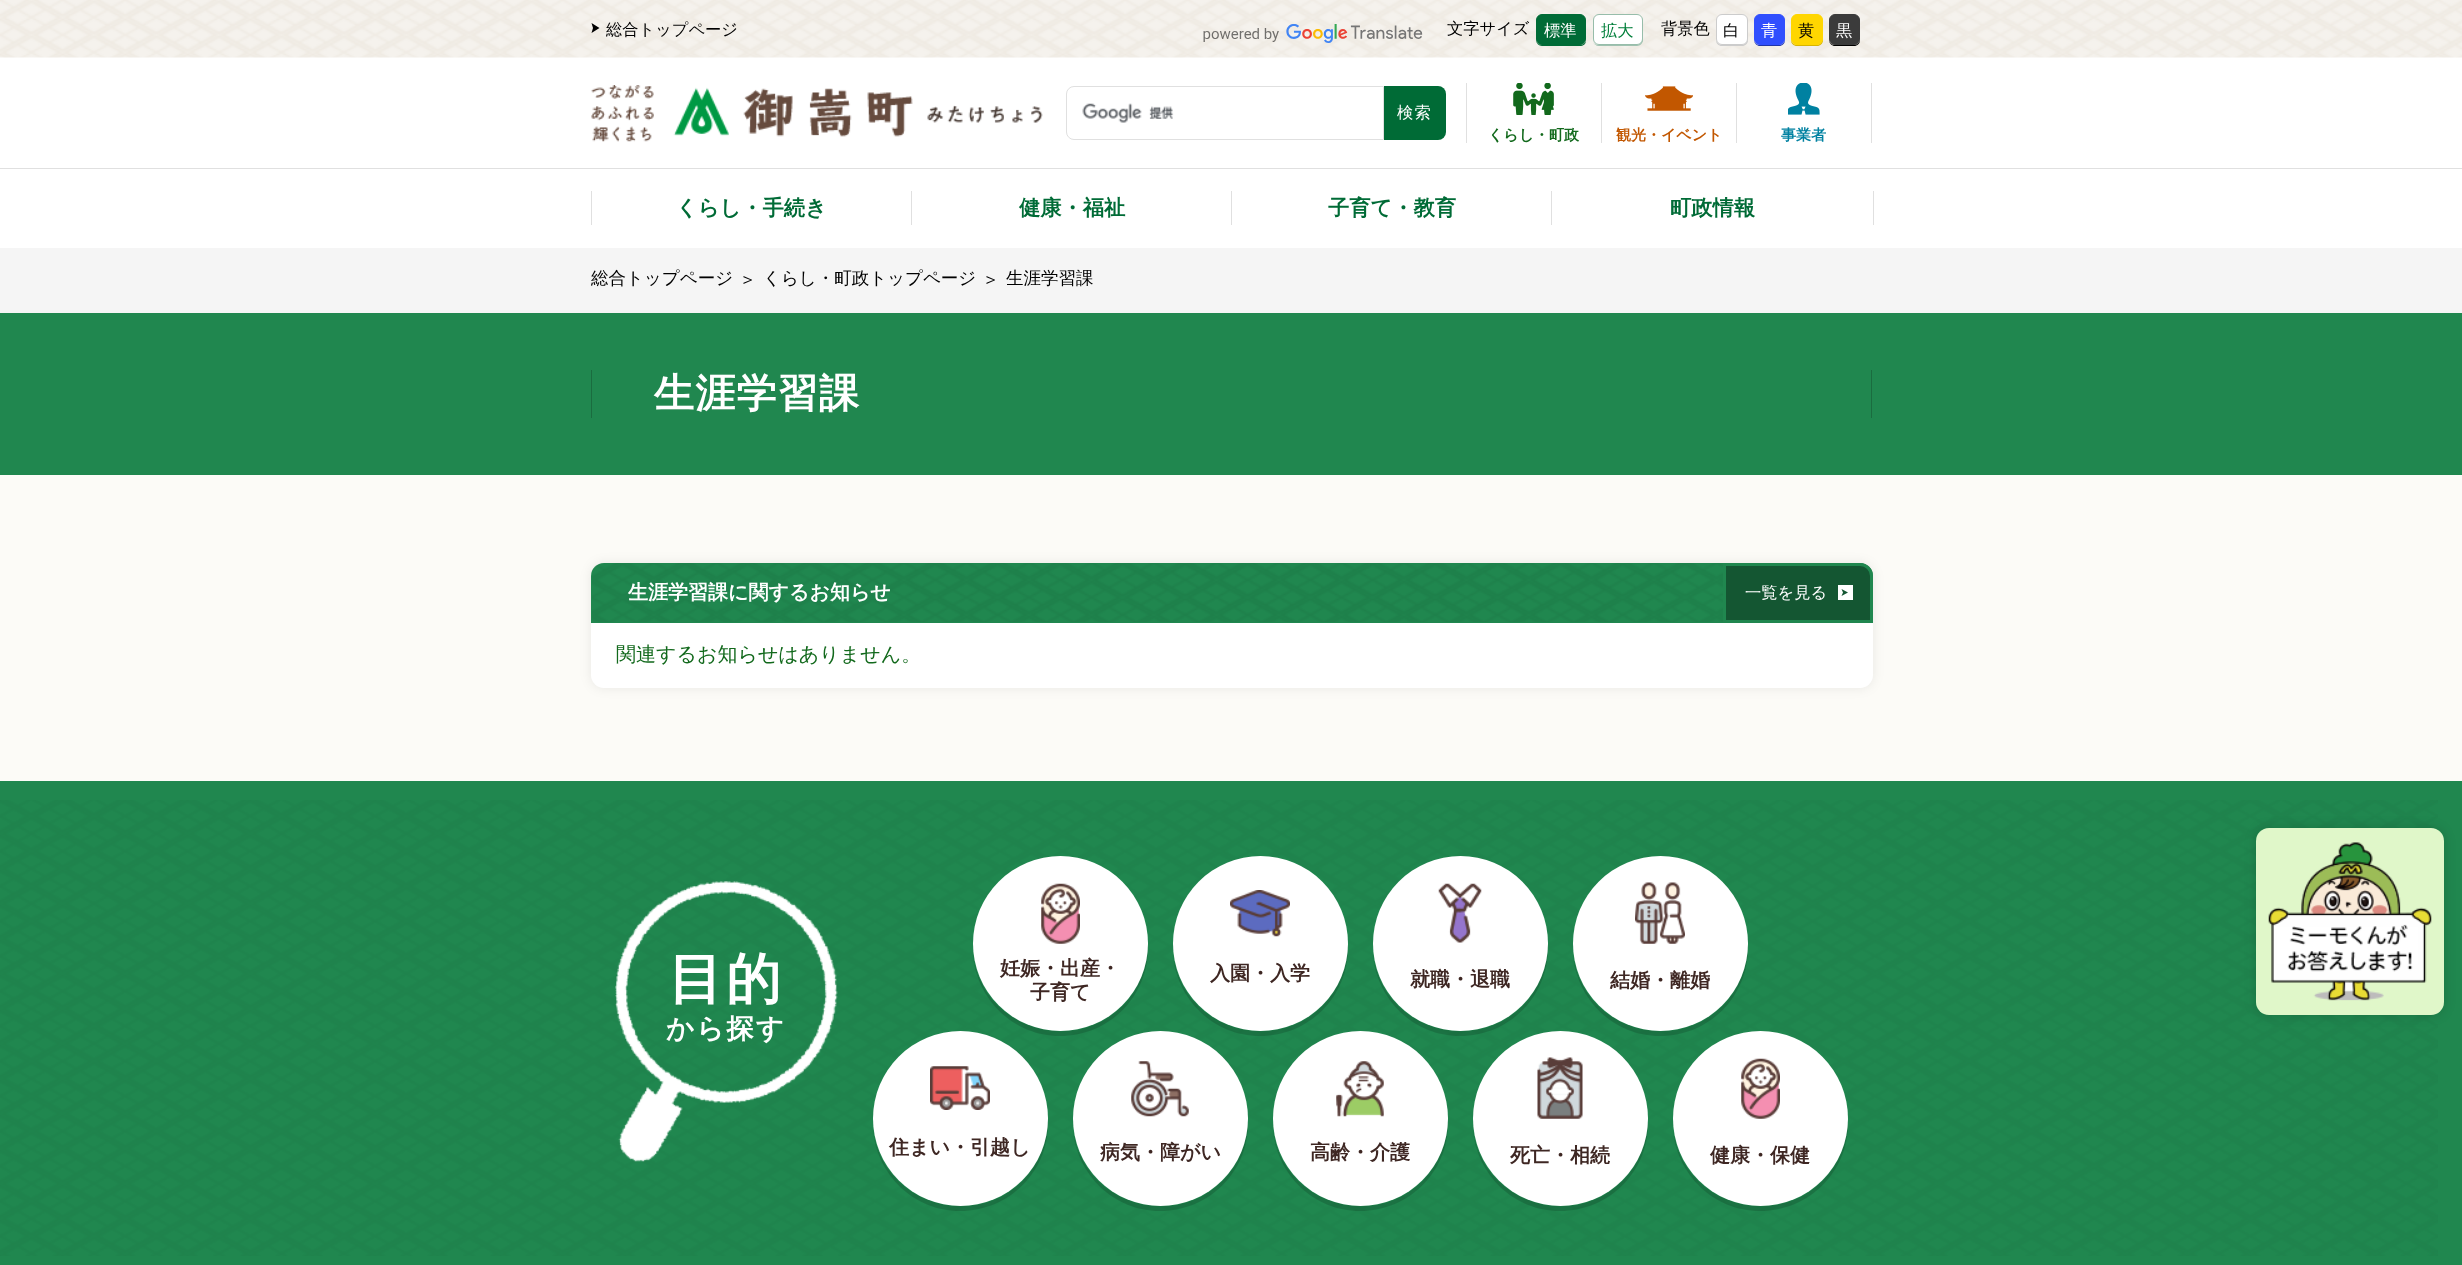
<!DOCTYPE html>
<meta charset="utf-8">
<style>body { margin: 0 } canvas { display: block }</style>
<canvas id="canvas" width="2462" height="1265"></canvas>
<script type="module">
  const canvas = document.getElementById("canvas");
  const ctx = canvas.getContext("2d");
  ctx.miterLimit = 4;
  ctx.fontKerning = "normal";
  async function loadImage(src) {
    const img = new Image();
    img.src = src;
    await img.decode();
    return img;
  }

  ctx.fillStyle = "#ffffff";
  ctx.fillRect(0, 0, 2462, 1265);
  ctx.drawImage(await loadImage("img1.png"), 0, 0, 2462, 58);
  ctx.fillStyle = "#000000";
  ctx.beginPath();
  ctx.moveTo(591.5, 33);
  ctx.lineTo(593, 28);
  ctx.lineTo(591.5, 23);
  ctx.lineTo(599.5, 28);
  ctx.closePath();
  ctx.fill();
  ctx.font = "500 16.25px WenQuanYi Zen Hei";
  ctx.fillText("総合トップページ", 606, 35);
  ctx.drawImage(await loadImage("img2.png"), 1203, 24, 220, 19);
  ctx.fillText("文字サイズ", 1447, 34);
  ctx.fillStyle = "#006b36";
  ctx.beginPath();
  ctx.moveTo(1536, 19);
  ctx.lineTo(1536, 40);
  ctx.bezierCurveTo(1536, 43, 1539, 46, 1542, 46);
  ctx.lineTo(1580, 46);
  ctx.bezierCurveTo(1583, 46, 1586, 44, 1586, 41);
  ctx.bezierCurveTo(1585, 43, 1583, 45, 1580, 45);
  ctx.lineTo(1542, 45);
  ctx.bezierCurveTo(1539, 45, 1536, 42, 1536, 39);
  ctx.closePath();
  ctx.fill();
  ctx.beginPath();
  ctx.roundRect(1536.5, 14.5, 49, 30, 5.5);
  ctx.fill();
  ctx.strokeStyle = "#006b36";
  ctx.stroke();
  ctx.fillStyle = "#ffffff";
  ctx.fillText("標準", 1544, 36);
  ctx.fillStyle = "rgba(151, 189, 170, 0.9)";
  ctx.beginPath();
  ctx.moveTo(1593, 42);
  ctx.bezierCurveTo(1594, 44, 1596, 46, 1599, 46);
  ctx.lineTo(1637, 46);
  ctx.bezierCurveTo(1640, 46, 1643, 43, 1643, 40);
  ctx.lineTo(1643, 21);
  ctx.lineTo(1642, 18);
  ctx.lineTo(1642, 39);
  ctx.bezierCurveTo(1642, 42, 1640, 45, 1636, 45);
  ctx.lineTo(1599, 45);
  ctx.bezierCurveTo(1596, 45, 1594, 44, 1593, 42);
  ctx.closePath();
  ctx.fill();
  ctx.fillStyle = "#ffffff";
  ctx.beginPath();
  ctx.roundRect(1593.5, 14.5, 49, 30, 5.5);
  ctx.fill();
  ctx.strokeStyle = "#97bdaa";
  ctx.stroke();
  ctx.fillStyle = "#007e39";
  ctx.fillText("拡大", 1601, 36);
  ctx.fillStyle = "#000000";
  ctx.fillText("背景色", 1661, 34);
  ctx.fillStyle = "#cccccc";
  ctx.beginPath();
  ctx.moveTo(1716.5, 19);
  ctx.lineTo(1716, 21);
  ctx.lineTo(1716, 40);
  ctx.bezierCurveTo(1716, 43.5, 1718.5, 46, 1722, 46);
  ctx.lineTo(1742, 46);
  ctx.bezierCurveTo(1745.5, 46, 1748, 43.5, 1748, 40);
  ctx.lineTo(1748, 21);
  ctx.bezierCurveTo(1748, 20, 1747.5, 19, 1747, 18);
  ctx.lineTo(1747.5, 20);
  ctx.lineTo(1747.5, 39);
  ctx.bezierCurveTo(1747.5, 42, 1744.5, 45, 1741, 45);
  ctx.lineTo(1722.5, 45);
  ctx.bezierCurveTo(1719, 45, 1716, 42, 1716, 39);
  ctx.closePath();
  ctx.fill();
  ctx.fillStyle = "#ffffff";
  ctx.beginPath();
  ctx.roundRect(1716.5, 14.5, 31, 30, 5.5);
  ctx.fill();
  ctx.strokeStyle = "#cccccc";
  ctx.stroke();
  ctx.fillStyle = "#000000";
  ctx.fillText("白", 1723, 36);
  ctx.fillStyle = "#2035aa";
  ctx.beginPath();
  ctx.moveTo(1754, 40.5);
  ctx.bezierCurveTo(1754.5, 43.5, 1757, 46, 1760, 46);
  ctx.lineTo(1779, 46);
  ctx.bezierCurveTo(1782.5, 46, 1785, 43.5, 1785, 40);
  ctx.lineTo(1785, 39);
  ctx.bezierCurveTo(1785, 42, 1782, 45, 1779, 45);
  ctx.lineTo(1760, 45);
  ctx.bezierCurveTo(1757, 45, 1755, 43, 1754, 40.5);
  ctx.closePath();
  ctx.fill();
  ctx.fillStyle = "#304ffe";
  ctx.beginPath();
  ctx.roundRect(1754.5, 14.5, 30, 30, 5.5);
  ctx.fill();
  ctx.strokeStyle = "#304ffe";
  ctx.stroke();
  ctx.fillStyle = "#ffffff";
  ctx.fillText("青", 1761, 36);
  ctx.fillStyle = "#d7b400";
  ctx.beginPath();
  ctx.moveTo(1791.5, 19);
  ctx.lineTo(1791, 21);
  ctx.lineTo(1791, 40);
  ctx.bezierCurveTo(1791, 43.5, 1793.5, 46, 1797, 46);
  ctx.lineTo(1817, 46);
  ctx.bezierCurveTo(1820.5, 46, 1823, 43.5, 1823, 40);
  ctx.lineTo(1823, 21);
  ctx.bezierCurveTo(1823, 20, 1822.5, 19, 1822, 18);
  ctx.lineTo(1822.5, 20);
  ctx.lineTo(1822.5, 39);
  ctx.bezierCurveTo(1822.5, 42, 1819.5, 45, 1816, 45);
  ctx.lineTo(1797.5, 45);
  ctx.bezierCurveTo(1794, 45, 1791, 42, 1791, 39);
  ctx.closePath();
  ctx.fill();
  ctx.fillStyle = "#ffd600";
  ctx.beginPath();
  ctx.roundRect(1791.5, 14.5, 31, 30, 5.5);
  ctx.fill();
  ctx.strokeStyle = "#ffd600";
  ctx.stroke();
  ctx.fillStyle = "#000000";
  ctx.fillText("黄", 1798, 36);
  ctx.beginPath();
  ctx.moveTo(1829, 40.5);
  ctx.bezierCurveTo(1829.5, 43.5, 1832, 46, 1835, 46);
  ctx.lineTo(1854, 46);
  ctx.bezierCurveTo(1857.5, 46, 1860, 43.5, 1860, 40);
  ctx.lineTo(1860, 39);
  ctx.bezierCurveTo(1860, 42, 1857, 45, 1854, 45);
  ctx.lineTo(1835, 45);
  ctx.bezierCurveTo(1832, 45, 1830, 43, 1829, 40.5);
  ctx.closePath();
  ctx.fill();
  ctx.fillStyle = "#3b3b3b";
  ctx.beginPath();
  ctx.roundRect(1829.5, 14.5, 30, 30, 5.5);
  ctx.fill();
  ctx.strokeStyle = "#3b3b3b";
  ctx.stroke();
  ctx.fillStyle = "#ffffff";
  ctx.fillText("黒", 1836, 36);
  ctx.drawImage(await loadImage("img3.png"), 591, 85, 452, 57);
  ctx.drawImage(await loadImage("img4.png"), 1082, 103, 92, 20);
  ctx.beginPath();
  ctx.roundRect(1066.5, 86.5, 317, 53, [7.5, 0, 0, 7.5]);
  ctx.strokeStyle = "#e0e0e0";
  ctx.stroke();
  ctx.fillStyle = "#006b36";
  ctx.beginPath();
  ctx.roundRect(1384, 86, 62, 54, [0, 8, 8, 0]);
  ctx.fill();
  ctx.letterSpacing = "1.25px";
  ctx.fillStyle = "#ffffff";
  ctx.fillText("検索", 1397, 118);
  ctx.fillStyle = "#e0e0e0";
  ctx.fillRect(1871, 83, 1, 60);
  ctx.fillRect(1466, 83, 1, 60);
  ctx.drawImage(await loadImage("img5.png"), 1513, 83, 41, 32);
  ctx.letterSpacing = "0px";
  ctx.font = "bold 15px WenQuanYi Zen Hei";
  ctx.fillStyle = "#12691c";
  ctx.fillText("くらし・町政", 1488, 140);
  ctx.fillStyle = "#e0e0e0";
  ctx.fillRect(1601, 83, 1, 60);
  ctx.drawImage(await loadImage("img6.png"), 1645, 86, 48, 25);
  ctx.fillStyle = "#c25700";
  ctx.fillText("観光・イベント", 1616, 140);
  ctx.fillStyle = "#e0e0e0";
  ctx.fillRect(1736, 83, 1, 60);
  ctx.drawImage(await loadImage("img7.png"), 1788, 83, 32, 32);
  ctx.fillStyle = "#0081a1";
  ctx.fillText("事業者", 1781, 140);
  ctx.fillStyle = "#e0e0e0";
  ctx.fillRect(0, 168, 2462, 1);
  ctx.fillRect(591, 191, 1, 34);
  ctx.font = "bold 21.25px WenQuanYi Zen Hei";
  ctx.fillStyle = "#006b36";
  ctx.fillText("くらし・手続き", 676, 215);
  ctx.fillStyle = "#e0e0e0";
  ctx.fillRect(911, 191, 1, 34);
  ctx.fillStyle = "#006b36";
  ctx.fillText("健康・福祉", 1019, 215);
  ctx.fillStyle = "#e0e0e0";
  ctx.fillRect(1231, 191, 1, 34);
  ctx.fillStyle = "#006b36";
  ctx.fillText("子育て・教育", 1328, 215);
  ctx.fillStyle = "#e0e0e0";
  ctx.fillRect(1551, 191, 1, 34);
  ctx.fillStyle = "#006b36";
  ctx.fillText("町政情報", 1670, 215);
  ctx.fillStyle = "#e0e0e0";
  ctx.fillRect(1873, 191, 1, 34);
  ctx.fillStyle = "#fcfbf7";
  ctx.fillRect(0, 475, 2462, 306);
  ctx.fillStyle = "#f5f5f5";
  ctx.fillRect(0, 248, 2462, 65);
  ctx.font = "500 17.5px WenQuanYi Zen Hei";
  ctx.fillStyle = "#000000";
  ctx.fillText("総合トップページ", 591, 284);
  ctx.fillText("＞", 739, 285);
  ctx.fillText("くらし・町政トップページ", 763, 284);
  ctx.fillText("＞", 982, 285);
  ctx.fillText("生涯学習課", 1006, 284);
  ctx.fillStyle = "#20874f";
  ctx.fillRect(0, 313, 2462, 162);
  ctx.fillStyle = "#1a6c3f";
  ctx.fillRect(1871, 370, 1, 48);
  ctx.fillRect(591, 370, 1, 48);
  ctx.letterSpacing = "1.25px";
  ctx.font = "bold 40px WenQuanYi Zen Hei";
  ctx.fillStyle = "#ffffff";
  ctx.fillText("生涯学習課", 654, 407);
  ctx.fillStyle = "rgba(0, 0, 0, 0.08)";
  ctx.filter = "blur(6px)";
  ctx.beginPath();
  ctx.roundRect(591, 563, 1282, 125, 13);
  ctx.fill();
  ctx.filter = "none";
  ctx.fillStyle = "#20874f";
  ctx.beginPath();
  ctx.roundRect(591, 563, 1282, 60, [13, 13, 0, 0]);
  ctx.fill();
  ctx.drawImage(await loadImage("img8.png"), 592, 563, 1277, 59);
  ctx.letterSpacing = "0px";
  ctx.font = "bold 20px WenQuanYi Zen Hei";
  ctx.fillStyle = "#ffffff";
  ctx.fillText("生涯学習課に関するお知らせ", 628, 599);
  ctx.fillStyle = "#145632";
  ctx.beginPath();
  ctx.roundRect(1724.5, 564.5, 147, 57, [0, 11.5, 0, 0]);
  ctx.fill();
  ctx.strokeStyle = "#20874f";
  ctx.lineWidth = 3;
  ctx.stroke();
  ctx.font = "500 16.25px WenQuanYi Zen Hei";
  ctx.fillStyle = "#ffffff";
  ctx.fillText("一覧を見る", 1745, 598);
  ctx.fillRect(1838, 585, 15, 15);
  ctx.fillStyle = "#145632";
  ctx.beginPath();
  ctx.moveTo(1841.5, 596);
  ctx.lineTo(1843, 592.5);
  ctx.lineTo(1841.5, 589);
  ctx.lineTo(1848, 592.5);
  ctx.closePath();
  ctx.fill();
  ctx.fillStyle = "#ffffff";
  ctx.beginPath();
  ctx.roundRect(591, 623, 1282, 65, [0, 0, 13, 13]);
  ctx.fill();
  ctx.font = "500 20px WenQuanYi Zen Hei";
  ctx.fillStyle = "#12691c";
  ctx.fillText("関連するお知らせはありません。", 616, 661);
  ctx.fillStyle = "#20874f";
  ctx.fillRect(0, 781, 2462, 484);
  ctx.drawImage(await loadImage("img9.png"), 0, 800, 2438, 456);
  ctx.drawImage(await loadImage("img10.png"), 615, 881, 223, 281);
  ctx.letterSpacing = "3px";
  ctx.font = "bold 55px WenQuanYi Zen Hei";
  ctx.fillStyle = "#ffffff";
  ctx.fillText("目的", 668, 998);
  ctx.letterSpacing = "2px";
  ctx.font = "bold 27.5px WenQuanYi Zen Hei";
  ctx.fillText("から探す", 666, 1038);
  ctx.fillStyle = "rgba(0, 0, 0, 0.15)";
  ctx.beginPath();
  ctx.moveTo(973, 955);
  ctx.bezierCurveTo(977, 1000, 1014, 1036, 1060, 1036);
  ctx.bezierCurveTo(1109, 1036, 1148, 997, 1148, 948);
  ctx.lineTo(1147, 937);
  ctx.bezierCurveTo(1149, 956, 1144, 976, 1133, 993);
  ctx.bezierCurveTo(1088, 1059, 984, 1035, 973, 955);
  ctx.closePath();
  ctx.fill();
  ctx.fillStyle = "#ffffff";
  ctx.beginPath();
  ctx.arc(1060.5, 943.5, 87.5, 0, Math.PI * 2);
  ctx.fill();
  ctx.drawImage(await loadImage("img11.png"), 1041, 883, 39, 61);
  ctx.letterSpacing = "0px";
  ctx.font = "bold 20px WenQuanYi Zen Hei";
  ctx.fillStyle = "#3e2723";
  ctx.fillText("妊娠・出産・", 1000, 975);
  ctx.fillText("子育て", 1030, 999);
  ctx.fillStyle = "rgba(0, 0, 0, 0.15)";
  ctx.beginPath();
  ctx.moveTo(1173, 955);
  ctx.bezierCurveTo(1177, 1000, 1214, 1036, 1260, 1036);
  ctx.bezierCurveTo(1309, 1036, 1348, 997, 1348, 948);
  ctx.lineTo(1347, 937);
  ctx.bezierCurveTo(1349, 956, 1344, 976, 1333, 993);
  ctx.bezierCurveTo(1288, 1059, 1184, 1035, 1173, 955);
  ctx.closePath();
  ctx.fill();
  ctx.fillStyle = "#ffffff";
  ctx.beginPath();
  ctx.arc(1260.5, 943.5, 87.5, 0, Math.PI * 2);
  ctx.fill();
  ctx.drawImage(await loadImage("img12.png"), 1230, 890, 60, 47);
  ctx.fillStyle = "#3e2723";
  ctx.fillText("入園・入学", 1210, 980);
  ctx.fillStyle = "rgba(0, 0, 0, 0.15)";
  ctx.beginPath();
  ctx.moveTo(1373, 955);
  ctx.bezierCurveTo(1377, 1000, 1414, 1036, 1460, 1036);
  ctx.bezierCurveTo(1509, 1036, 1548, 997, 1548, 948);
  ctx.lineTo(1547, 937);
  ctx.bezierCurveTo(1549, 956, 1544, 976, 1533, 993);
  ctx.bezierCurveTo(1488, 1059, 1384, 1035, 1373, 955);
  ctx.closePath();
  ctx.fill();
  ctx.fillStyle = "#ffffff";
  ctx.beginPath();
  ctx.arc(1460.5, 943.5, 87.5, 0, Math.PI * 2);
  ctx.fill();
  ctx.drawImage(await loadImage("img13.png"), 1438, 883, 44, 60);
  ctx.fillStyle = "#3e2723";
  ctx.fillText("就職・退職", 1410, 986);
  ctx.fillStyle = "rgba(0, 0, 0, 0.15)";
  ctx.beginPath();
  ctx.moveTo(1573, 955);
  ctx.bezierCurveTo(1577, 1000, 1614, 1036, 1660, 1036);
  ctx.bezierCurveTo(1709, 1036, 1748, 997, 1748, 948);
  ctx.lineTo(1747, 937);
  ctx.bezierCurveTo(1749, 956, 1744, 976, 1733, 993);
  ctx.bezierCurveTo(1688, 1059, 1584, 1035, 1573, 955);
  ctx.closePath();
  ctx.fill();
  ctx.fillStyle = "#ffffff";
  ctx.beginPath();
  ctx.arc(1660.5, 943.5, 87.5, 0, Math.PI * 2);
  ctx.fill();
  ctx.drawImage(await loadImage("img14.png"), 1635, 882, 50, 62);
  ctx.fillStyle = "#3e2723";
  ctx.fillText("結婚・離婚", 1610, 987);
  ctx.fillStyle = "rgba(0, 0, 0, 0.15)";
  ctx.beginPath();
  ctx.moveTo(873, 1130);
  ctx.bezierCurveTo(877, 1175, 914, 1211, 960, 1211);
  ctx.bezierCurveTo(1009, 1211, 1048, 1172, 1048, 1124);
  ctx.lineTo(1047, 1112);
  ctx.bezierCurveTo(1049, 1131, 1044, 1151, 1033, 1168);
  ctx.bezierCurveTo(988, 1234, 884, 1210, 873, 1130);
  ctx.closePath();
  ctx.fill();
  ctx.fillStyle = "#ffffff";
  ctx.beginPath();
  ctx.arc(960.5, 1118.5, 87.5, 0, Math.PI * 2);
  ctx.fill();
  ctx.drawImage(await loadImage("img15.png"), 930, 1066, 60, 44);
  ctx.fillStyle = "#3e2723";
  ctx.fillText("住まい・引越し", 889, 1154);
  ctx.fillStyle = "rgba(0, 0, 0, 0.15)";
  ctx.beginPath();
  ctx.moveTo(1073, 1130);
  ctx.bezierCurveTo(1077, 1175, 1114, 1211, 1160, 1211);
  ctx.bezierCurveTo(1209, 1211, 1248, 1172, 1248, 1124);
  ctx.lineTo(1247, 1112);
  ctx.bezierCurveTo(1249, 1131, 1244, 1151, 1233, 1168);
  ctx.bezierCurveTo(1188, 1234, 1084, 1210, 1073, 1130);
  ctx.closePath();
  ctx.fill();
  ctx.fillStyle = "#ffffff";
  ctx.beginPath();
  ctx.arc(1160.5, 1118.5, 87.5, 0, Math.PI * 2);
  ctx.fill();
  ctx.drawImage(await loadImage("img16.png"), 1131, 1061, 58, 56);
  ctx.fillStyle = "#3e2723";
  ctx.fillText("病気・障がい", 1100, 1159);
  ctx.fillStyle = "rgba(0, 0, 0, 0.15)";
  ctx.beginPath();
  ctx.moveTo(1273, 1130);
  ctx.bezierCurveTo(1277, 1175, 1314, 1211, 1360, 1211);
  ctx.bezierCurveTo(1409, 1211, 1448, 1172, 1448, 1124);
  ctx.lineTo(1447, 1112);
  ctx.bezierCurveTo(1449, 1131, 1444, 1151, 1433, 1168);
  ctx.bezierCurveTo(1388, 1234, 1284, 1210, 1273, 1130);
  ctx.closePath();
  ctx.fill();
  ctx.fillStyle = "#ffffff";
  ctx.beginPath();
  ctx.arc(1360.5, 1118.5, 87.5, 0, Math.PI * 2);
  ctx.fill();
  ctx.drawImage(await loadImage("img17.png"), 1336, 1061, 48, 56);
  ctx.fillStyle = "#3e2723";
  ctx.fillText("高齢・介護", 1310, 1159);
  ctx.fillStyle = "rgba(0, 0, 0, 0.15)";
  ctx.beginPath();
  ctx.moveTo(1473, 1130);
  ctx.bezierCurveTo(1477, 1175, 1514, 1211, 1560, 1211);
  ctx.bezierCurveTo(1609, 1211, 1648, 1172, 1648, 1124);
  ctx.lineTo(1647, 1112);
  ctx.bezierCurveTo(1649, 1131, 1644, 1151, 1633, 1168);
  ctx.bezierCurveTo(1588, 1234, 1484, 1210, 1473, 1130);
  ctx.closePath();
  ctx.fill();
  ctx.fillStyle = "#ffffff";
  ctx.beginPath();
  ctx.arc(1560.5, 1118.5, 87.5, 0, Math.PI * 2);
  ctx.fill();
  ctx.drawImage(await loadImage("img18.png"), 1537, 1057, 46, 62);
  ctx.fillStyle = "#3e2723";
  ctx.fillText("死亡・相続", 1510, 1162);
  ctx.fillStyle = "rgba(0, 0, 0, 0.15)";
  ctx.beginPath();
  ctx.moveTo(1673, 1130);
  ctx.bezierCurveTo(1677, 1175, 1714, 1211, 1760, 1211);
  ctx.bezierCurveTo(1809, 1211, 1848, 1172, 1848, 1124);
  ctx.lineTo(1847, 1112);
  ctx.bezierCurveTo(1849, 1131, 1844, 1151, 1833, 1168);
  ctx.bezierCurveTo(1788, 1234, 1684, 1210, 1673, 1130);
  ctx.closePath();
  ctx.fill();
  ctx.fillStyle = "#ffffff";
  ctx.beginPath();
  ctx.arc(1760.5, 1118.5, 87.5, 0, Math.PI * 2);
  ctx.fill();
  ctx.drawImage(await loadImage("img11.png"), 1741, 1058, 39, 61);
  ctx.fillStyle = "#3e2723";
  ctx.fillText("健康・保健", 1710, 1162);
  ctx.fillStyle = "rgba(0, 0, 0, 0.15)";
  ctx.filter = "blur(6px)";
  ctx.beginPath();
  ctx.roundRect(2256, 828, 188, 187, 13);
  ctx.fill();
  ctx.filter = "none";
  ctx.fillStyle = "#e0f7c9";
  ctx.beginPath();
  ctx.roundRect(2256, 828, 188, 187, 13);
  ctx.fill();
  ctx.drawImage(await loadImage("img19.png"), 2268, 842, 164, 159);
</script>
